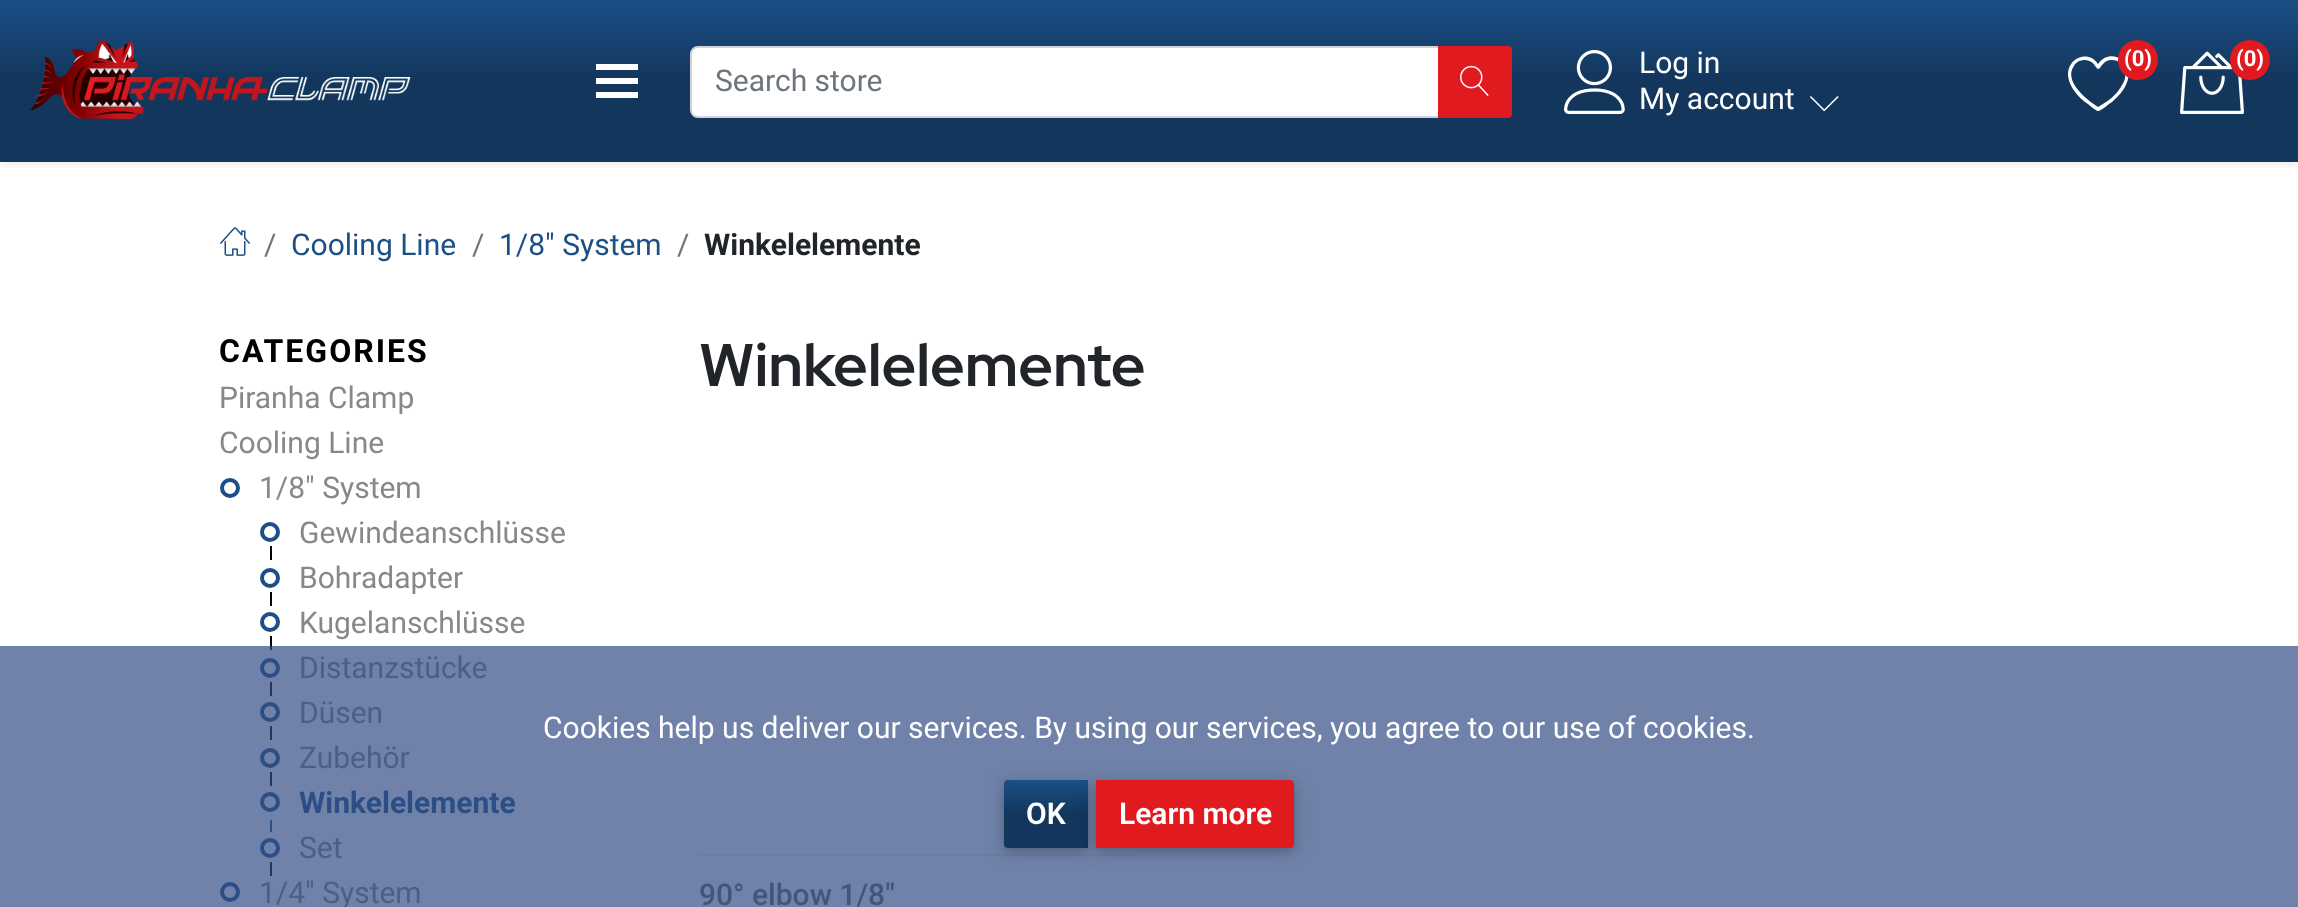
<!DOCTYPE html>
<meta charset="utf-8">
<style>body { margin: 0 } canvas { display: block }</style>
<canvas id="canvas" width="2298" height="907"></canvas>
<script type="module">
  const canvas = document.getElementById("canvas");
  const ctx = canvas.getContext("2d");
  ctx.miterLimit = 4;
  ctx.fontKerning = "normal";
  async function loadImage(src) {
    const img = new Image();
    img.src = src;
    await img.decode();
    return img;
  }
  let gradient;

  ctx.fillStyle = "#ffffff";
  ctx.fillRect(0, 0, 2298, 907);
  ctx.fillStyle = "#7082a9";
  ctx.fillRect(0, 646, 2298, 261);
  gradient = ctx.createLinearGradient(1149, 0, 1149, 162);
  gradient.addColorStop(0, "#1b4f86");
  gradient.addColorStop(0.5, "#12365c");
  ctx.fillStyle = gradient;
  ctx.fillRect(0, 0, 2298, 162);
  ctx.save();
  ctx.beginPath();
  ctx.rect(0, 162, 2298, 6);
  ctx.clip();
  ctx.fillStyle = "rgba(0, 0, 0, 0.07)";
  ctx.filter = "blur(4px)";
  ctx.beginPath();
  ctx.rect(0, 4, 2298, 162);
  ctx.fill();
  ctx.filter = "none";
  ctx.restore();
  ctx.drawImage(await loadImage("img1.png"), 30, 40, 381, 80);
  ctx.fillStyle = "#ffffff";
  ctx.fillRect(596, 64, 42, 6);
  ctx.fillRect(596, 78, 42, 6);
  ctx.fillRect(596, 92, 42, 6);
  ctx.beginPath();
  ctx.roundRect(691, 47, 748, 70, [7, 0, 0, 7]);
  ctx.fill();
  ctx.strokeStyle = "#ced4da";
  ctx.lineWidth = 2;
  ctx.stroke();
  ctx.font = "30px Roboto";
  ctx.fillStyle = "#6c757d";
  ctx.fillText("Search store", 715, 91);
  ctx.fillStyle = "#e11a20";
  ctx.beginPath();
  ctx.roundRect(1438, 46, 74, 72, [0, 4, 4, 0]);
  ctx.fill();
  ctx.drawImage(await loadImage("img2.png"), 1460, 65, 29, 31);
  ctx.drawImage(await loadImage("img3.png"), 1564, 50, 61, 64);
  ctx.fillStyle = "#ffffff";
  ctx.fillText("Log in", 1639, 73);
  ctx.fillText("My account", 1639, 109);
  ctx.drawImage(await loadImage("img4.png"), 1810, 96, 29, 16);
  ctx.beginPath();
  ctx.moveTo(2098, 111);
  ctx.bezierCurveTo(2096, 111, 2087, 103, 2085, 102);
  ctx.bezierCurveTo(2046, 69, 2085, 43, 2098, 64);
  ctx.bezierCurveTo(2113, 42, 2150, 70, 2112, 102);
  ctx.bezierCurveTo(2110, 103, 2101, 111, 2098, 111);
  ctx.closePath();
  ctx.moveTo(2085, 60);
  ctx.bezierCurveTo(2080, 60, 2076, 62, 2074, 66);
  ctx.bezierCurveTo(2063, 81, 2087, 100, 2098, 107);
  ctx.bezierCurveTo(2107, 102, 2117, 95, 2122, 85);
  ctx.bezierCurveTo(2125, 81, 2126, 76, 2125, 70);
  ctx.bezierCurveTo(2124, 62, 2113, 57, 2105, 62);
  ctx.lineTo(2102, 65);
  ctx.bezierCurveTo(2101, 66, 2100, 69, 2098, 69);
  ctx.bezierCurveTo(2096, 69, 2094, 60, 2085, 60);
  ctx.closePath();
  ctx.fill();
  ctx.fillStyle = "#e11a20";
  ctx.beginPath();
  ctx.arc(2138, 60, 20, 0, Math.PI * 2);
  ctx.fill();
  ctx.font = "bold 22px Roboto";
  ctx.fillStyle = "#ffffff";
  ctx.fillText("(0)", 2124, 66);
  ctx.drawImage(await loadImage("img5.png"), 2180, 51, 64, 63);
  ctx.fillStyle = "#e11a20";
  ctx.beginPath();
  ctx.arc(2250, 60, 20, 0, Math.PI * 2);
  ctx.fill();
  ctx.fillStyle = "#ffffff";
  ctx.fillText("(0)", 2236, 66);
  ctx.drawImage(await loadImage("img6.png"), 220, 227, 30, 29);
  ctx.font = "30px Roboto";
  ctx.fillStyle = "#6c757d";
  ctx.fillText("/", 264, 255);
  ctx.fillStyle = "#1b4f86";
  ctx.fillText("Cooling Line", 291, 255);
  ctx.fillStyle = "#6c757d";
  ctx.fillText("/", 472, 255);
  ctx.fillStyle = "#1b4f86";
  ctx.fillText("1/8\" System", 499, 255);
  ctx.fillStyle = "#6c757d";
  ctx.fillText("/", 677, 255);
  ctx.font = "bold 30px Roboto";
  ctx.fillStyle = "#212529";
  ctx.fillText("Winkelelemente", 704, 255);
  ctx.letterSpacing = "2px";
  ctx.font = "bold 32px Roboto";
  ctx.fillStyle = "#000000";
  ctx.fillText("CATEGORIES", 219, 362);
  ctx.letterSpacing = "0px";
  ctx.font = "30px Roboto";
  ctx.fillStyle = "#888888";
  ctx.fillText("Piranha Clamp", 219, 408);
  ctx.fillText("Cooling Line", 219, 453);
  ctx.beginPath();
  ctx.arc(230, 488, 8, 0, Math.PI * 2);
  ctx.strokeStyle = "#1b4f86";
  ctx.lineWidth = 4;
  ctx.stroke();
  ctx.fillText("1/8\" System", 259, 498);
  ctx.beginPath();
  ctx.arc(270, 532, 8, 0, Math.PI * 2);
  ctx.stroke();
  ctx.fillText("Gewindeanschlüsse", 299, 543);
  ctx.fillStyle = "#000000";
  ctx.fillRect(270, 546, 2, 14);
  ctx.beginPath();
  ctx.arc(270, 578, 8, 0, Math.PI * 2);
  ctx.stroke();
  ctx.fillStyle = "#888888";
  ctx.fillText("Bohradapter", 299, 588);
  ctx.fillStyle = "#000000";
  ctx.fillRect(270, 592, 2, 14);
  ctx.beginPath();
  ctx.arc(270, 622, 8, 0, Math.PI * 2);
  ctx.stroke();
  ctx.fillStyle = "#888888";
  ctx.fillText("Kugelanschlüsse", 299, 633);
  ctx.fillStyle = "#000000";
  ctx.fillRect(270, 636, 2, 14);
  ctx.fillStyle = "#24365c";
  ctx.fillRect(270, 646, 2, 4);
  ctx.beginPath();
  ctx.arc(270, 668, 8, 0, Math.PI * 2);
  ctx.strokeStyle = "#2c4e85";
  ctx.stroke();
  ctx.fillStyle = "#4d5f85";
  ctx.fillText("Distanzstücke", 299, 678);
  ctx.fillStyle = "#24365c";
  ctx.fillRect(270, 682, 2, 14);
  ctx.beginPath();
  ctx.arc(270, 712, 8, 0, Math.PI * 2);
  ctx.stroke();
  ctx.fillStyle = "#4d5f85";
  ctx.fillText("Düsen", 299, 723);
  ctx.fillStyle = "#24365c";
  ctx.fillRect(270, 726, 2, 14);
  ctx.beginPath();
  ctx.arc(270, 758, 8, 0, Math.PI * 2);
  ctx.stroke();
  ctx.fillStyle = "#4d5f85";
  ctx.fillText("Zubehör", 299, 768);
  ctx.fillStyle = "#24365c";
  ctx.fillRect(270, 772, 2, 14);
  ctx.beginPath();
  ctx.arc(270, 802, 8, 0, Math.PI * 2);
  ctx.stroke();
  ctx.font = "bold 30px Roboto";
  ctx.fillStyle = "#2c4e85";
  ctx.fillText("Winkelelemente", 299, 813);
  ctx.fillRect(270, 820, 2, 12);
  ctx.beginPath();
  ctx.arc(270, 848, 8, 0, Math.PI * 2);
  ctx.stroke();
  ctx.font = "30px Roboto";
  ctx.fillStyle = "#4d5f85";
  ctx.fillText("Set", 299, 858);
  ctx.fillStyle = "#24365c";
  ctx.fillRect(270, 862, 2, 14);
  ctx.beginPath();
  ctx.arc(230, 892, 8, 0, Math.PI * 2);
  ctx.stroke();
  ctx.fillStyle = "#4d5f85";
  ctx.fillText("1/4\" System", 259, 903);
  ctx.font = "bold 60px Red Hat Display";
  ctx.fillStyle = "#212529";
  ctx.fillText("Winkelelemente", 699, 386);
  ctx.fillStyle = "#6b7da4";
  ctx.fillRect(700, 854, 440, 2);
  ctx.font = "500 30px Roboto";
  ctx.fillStyle = "#42557b";
  ctx.fillText("90° elbow 1/8\"", 699, 905);
  ctx.font = "30px Roboto";
  ctx.fillStyle = "#ffffff";
  ctx.fillText("Cookies help us deliver our services. By using our services, you agree to our use of cookies.", 543, 738);
  ctx.fillStyle = "rgba(0, 0, 0, 0.12)";
  ctx.filter = "blur(10px)";
  ctx.beginPath();
  ctx.roundRect(1004, 784, 84, 68, 4);
  ctx.fill();
  ctx.filter = "none";
  ctx.fillStyle = "rgba(0, 0, 0, 0.16)";
  ctx.filter = "blur(5px)";
  ctx.beginPath();
  ctx.roundRect(1004, 784, 84, 68, 4);
  ctx.fill();
  ctx.filter = "none";
  gradient = ctx.createLinearGradient(1046, 780, 1046, 848);
  gradient.addColorStop(0, "#1b4f86");
  gradient.addColorStop(0.5, "#12365c");
  ctx.fillStyle = gradient;
  ctx.beginPath();
  ctx.roundRect(1004, 780, 84, 68, [4, 0, 0, 4]);
  ctx.fill();
  ctx.font = "600 30px Roboto";
  ctx.fillStyle = "#ffffff";
  ctx.fillText("OK", 1026, 824);
  ctx.fillStyle = "rgba(0, 0, 0, 0.12)";
  ctx.filter = "blur(10px)";
  ctx.beginPath();
  ctx.roundRect(1096, 784, 198, 68, 4);
  ctx.fill();
  ctx.filter = "none";
  ctx.fillStyle = "rgba(0, 0, 0, 0.16)";
  ctx.filter = "blur(5px)";
  ctx.beginPath();
  ctx.roundRect(1096, 784, 198, 68, 4);
  ctx.fill();
  ctx.filter = "none";
  ctx.fillStyle = "#e11a20";
  ctx.beginPath();
  ctx.roundRect(1096, 780, 198, 68, [0, 4, 4, 0]);
  ctx.fill();
  ctx.fillStyle = "#ffffff";
  ctx.fillText("Learn more", 1119, 824);
</script>
